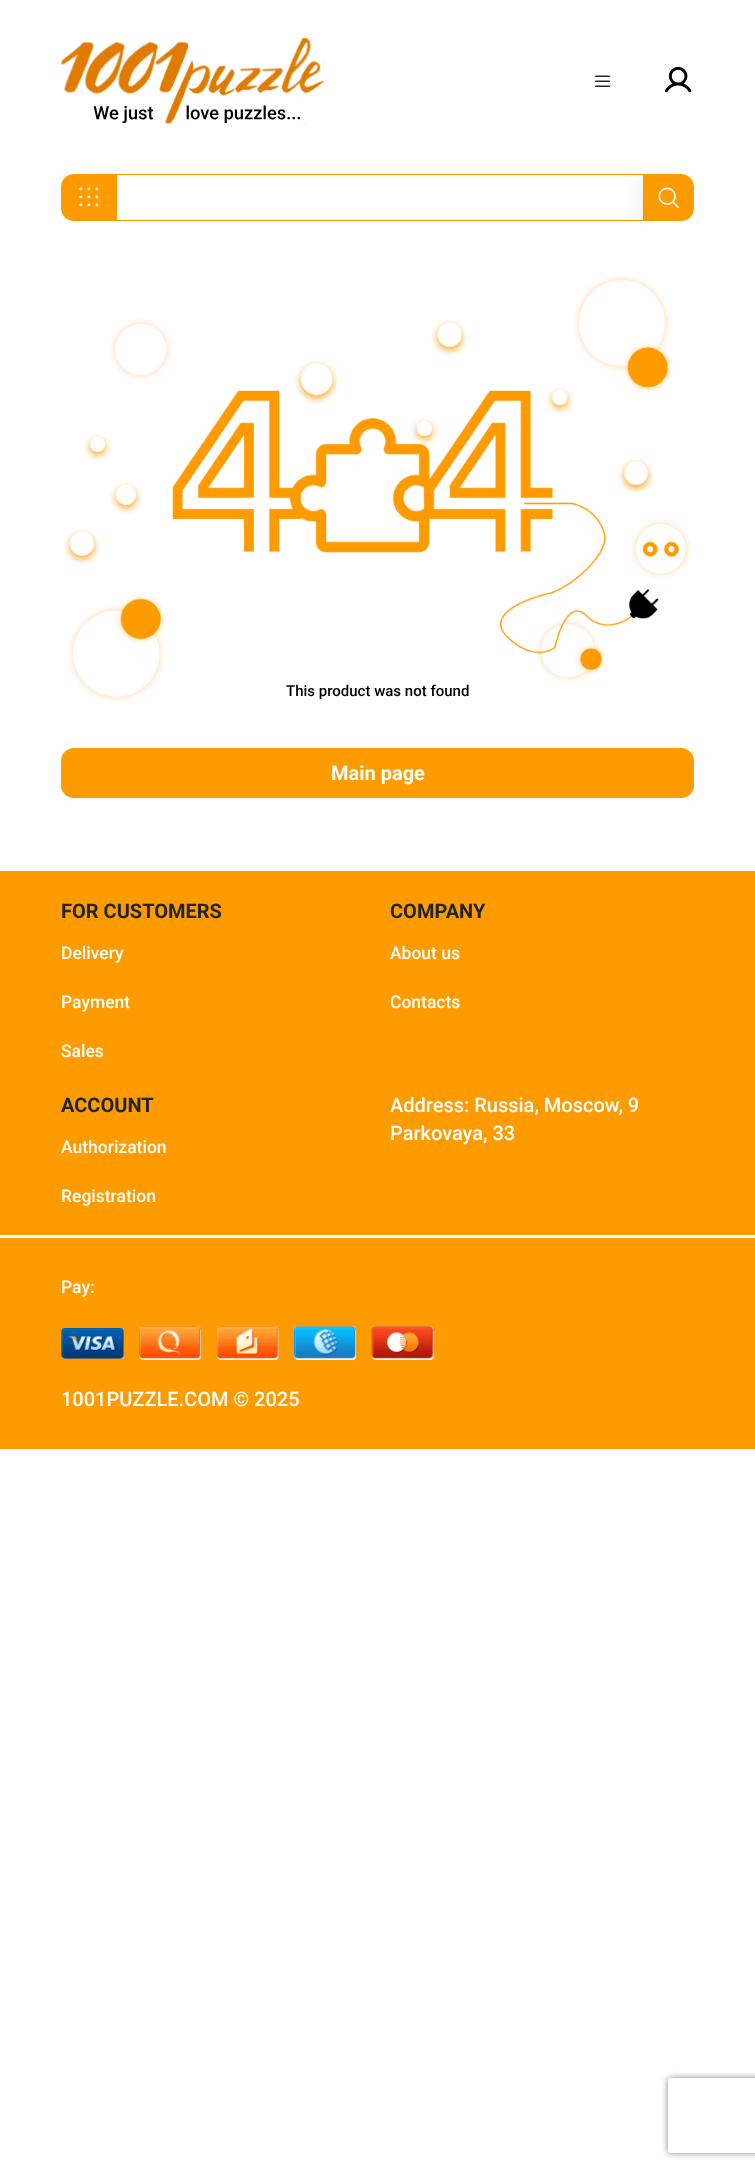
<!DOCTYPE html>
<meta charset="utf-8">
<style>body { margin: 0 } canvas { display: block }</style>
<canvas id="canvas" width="755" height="2170"></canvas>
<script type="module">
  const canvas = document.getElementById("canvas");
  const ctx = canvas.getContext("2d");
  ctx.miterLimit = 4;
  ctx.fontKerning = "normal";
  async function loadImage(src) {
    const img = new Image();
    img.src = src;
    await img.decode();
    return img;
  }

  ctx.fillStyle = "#ffffff";
  ctx.fillRect(0, 0, 755, 2170);
  ctx.drawImage(await loadImage("img1.png"), 61, 38, 263, 86);
  ctx.drawImage(await loadImage("img2.png"), 595, 75, 15, 12);
  ctx.drawImage(await loadImage("img3.png"), 664, 66, 28, 27);
  ctx.fillStyle = "#fe9b00";
  ctx.beginPath();
  ctx.roundRect(61, 174, 55, 47, [13, 0, 0, 13]);
  ctx.fill();
  ctx.drawImage(await loadImage("img4.png"), 79, 187, 20, 20);
  ctx.strokeStyle = "#fe9b00";
  ctx.strokeRect(116.5, 174.5, 527, 46);
  ctx.save();
  ctx.beginPath();
  ctx.roundRect(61, 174, 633, 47, 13);
  ctx.clip();
  ctx.fillStyle = "rgba(0, 0, 0, 0.1)";
  ctx.filter = "blur(11px)";
  ctx.beginPath();
  ctx.rect(644, 178, 50, 50);
  ctx.fill();
  ctx.filter = "none";
  ctx.restore();
  ctx.beginPath();
  ctx.roundRect(644, 174, 50, 47, [0, 13, 13, 0]);
  ctx.fill();
  ctx.drawImage(await loadImage("img5.png"), 658, 187, 21, 21);
  ctx.drawImage(await loadImage("img6.png"), 64, 275, 627, 427);
  ctx.font = "500 15px Roboto";
  ctx.fillStyle = "#000000";
  ctx.fillText("This product was not found", 286, 696);
  ctx.fillStyle = "#fe9b00";
  ctx.beginPath();
  ctx.roundRect(61, 748, 633, 50, 13);
  ctx.fill();
  ctx.font = "bold 20px Roboto";
  ctx.fillStyle = "#ffffff";
  ctx.fillText("Main page", 331, 780);
  ctx.fillStyle = "#fe9b00";
  ctx.fillRect(0, 871, 755, 578);
  ctx.fillStyle = "#ffffff";
  ctx.fillRect(0, 1235, 755, 3);
  ctx.fillStyle = "#212529";
  ctx.fillText("FOR CUSTOMERS", 61, 918);
  ctx.font = "500 17.5px Roboto";
  ctx.fillStyle = "#ffffff";
  ctx.fillText("Delivery", 61, 959);
  ctx.fillText("Payment", 61, 1008);
  ctx.fillText("Sales", 61, 1057);
  ctx.font = "bold 20px Roboto";
  ctx.fillStyle = "#212529";
  ctx.fillText("COMPANY", 390, 918);
  ctx.font = "500 17.5px Roboto";
  ctx.fillStyle = "#ffffff";
  ctx.fillText("About us", 390, 959);
  ctx.fillText("Contacts", 390, 1008);
  ctx.font = "bold 20px Roboto";
  ctx.fillStyle = "#212529";
  ctx.fillText("ACCOUNT", 61, 1112);
  ctx.font = "500 17.5px Roboto";
  ctx.fillStyle = "#ffffff";
  ctx.fillText("Authorization", 61, 1153);
  ctx.fillText("Registration", 61, 1202);
  ctx.font = "500 20px Roboto";
  ctx.fillText("Address: Russia, Moscow, 9", 390, 1112);
  ctx.fillText("Parkovaya, 33", 390, 1140);
  ctx.font = "500 17.5px Roboto";
  ctx.fillText("Pay:", 61, 1293);
  ctx.drawImage(await loadImage("img7.png"), 61, 1328, 63, 31);
  ctx.drawImage(await loadImage("img8.png"), 139, 1326, 62, 34);
  ctx.drawImage(await loadImage("img9.png"), 216, 1326, 63, 34);
  ctx.drawImage(await loadImage("img10.png"), 294, 1326, 62, 34);
  ctx.drawImage(await loadImage("img11.png"), 371, 1326, 63, 34);
  ctx.font = "500 20px Roboto";
  ctx.fillText("1001PUZZLE.COM © 2025", 61, 1406);
  ctx.save();
  ctx.beginPath();
  ctx.moveTo(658, 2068);
  ctx.lineTo(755, 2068);
  ctx.lineTo(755, 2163);
  ctx.lineTo(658, 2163);
  ctx.closePath();
  ctx.moveTo(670.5, 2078);
  ctx.lineTo(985.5, 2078);
  ctx.bezierCurveTo(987, 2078, 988, 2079, 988, 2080.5);
  ctx.lineTo(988, 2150.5);
  ctx.bezierCurveTo(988, 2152, 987, 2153, 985.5, 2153);
  ctx.lineTo(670.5, 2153);
  ctx.bezierCurveTo(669, 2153, 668, 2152, 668, 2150.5);
  ctx.lineTo(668, 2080.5);
  ctx.bezierCurveTo(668, 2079, 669, 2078, 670.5, 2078);
  ctx.closePath();
  ctx.clip("evenodd");
  ctx.fillStyle = "#808080";
  ctx.filter = "blur(3px)";
  ctx.beginPath();
  ctx.roundRect(668, 2078, 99, 75, 2.5);
  ctx.fill();
  ctx.filter = "none";
  ctx.restore();
</script>
